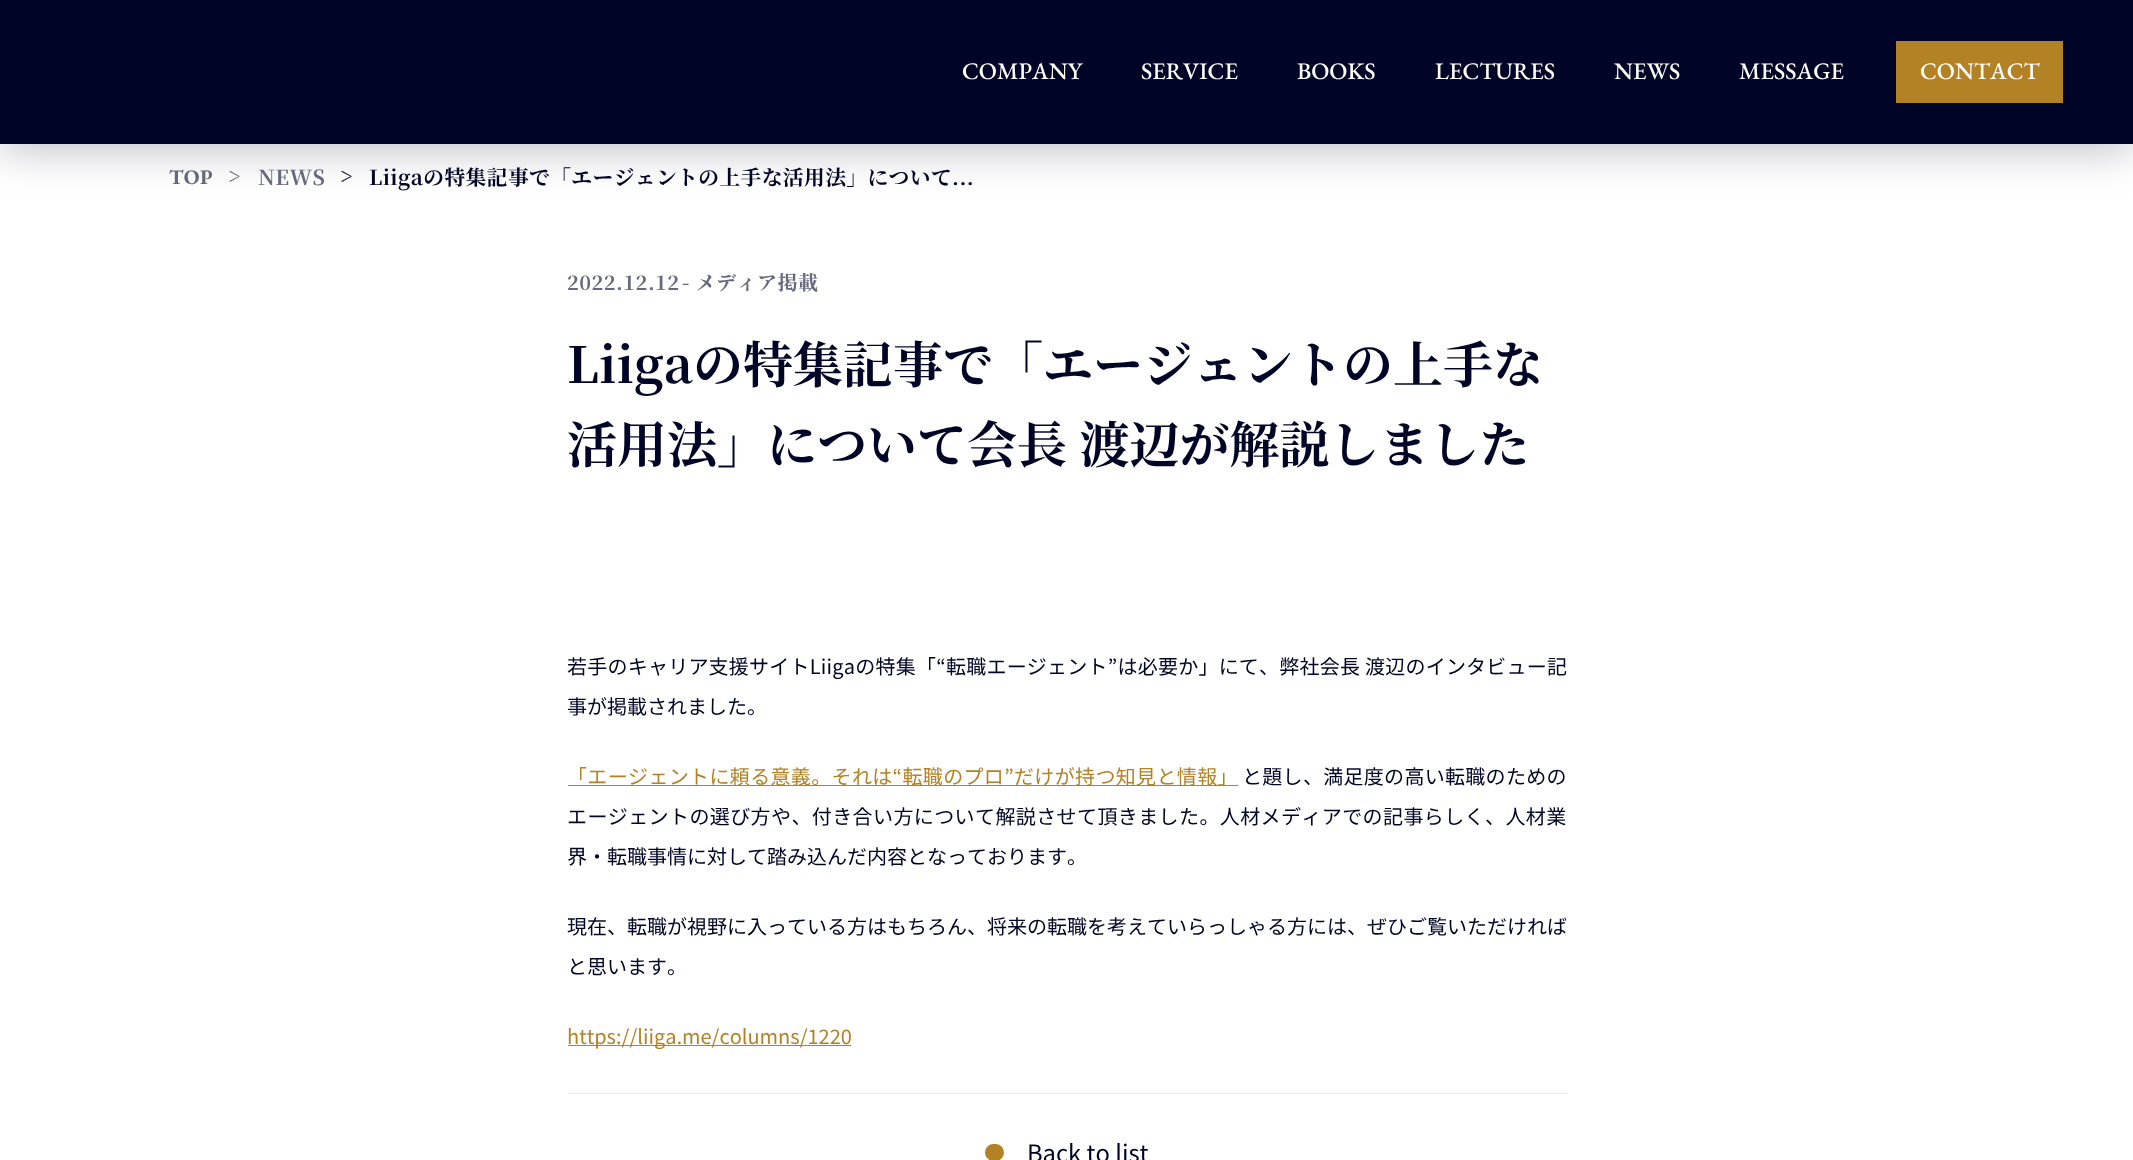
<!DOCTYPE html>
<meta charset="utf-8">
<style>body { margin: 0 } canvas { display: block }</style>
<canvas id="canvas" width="2133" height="1160"></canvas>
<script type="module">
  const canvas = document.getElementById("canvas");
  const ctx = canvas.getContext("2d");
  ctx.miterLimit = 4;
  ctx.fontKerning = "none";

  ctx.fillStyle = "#ffffff";
  ctx.fillRect(0, 0, 2133, 1160);
  ctx.fillStyle = "rgba(0, 4, 38, 0.25)";
  ctx.filter = "blur(22px)";
  ctx.beginPath();
  ctx.rect(0, 6, 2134, 144);
  ctx.fill();
  ctx.filter = "none";
  ctx.fillStyle = "#000426";
  ctx.fillRect(0, 0, 2133, 144);
  ctx.font = "500 23.75px EB Garamond";
  ctx.fillStyle = "#ffffff";
  ctx.fillText("COMPANY", 962, 79);
  ctx.fillText("SERVICE", 1141, 79);
  ctx.fillText("BOOKS", 1297, 79);
  ctx.fillText("LECTURES", 1435, 79);
  ctx.fillText("NEWS", 1614, 79);
  ctx.fillText("MESSAGE", 1739, 79);
  ctx.fillStyle = "#b28224";
  ctx.fillRect(1896, 41, 167, 62);
  ctx.fillStyle = "#ffffff";
  ctx.fillText("CONTACT", 1920, 79);
  ctx.letterSpacing = "0.4px";
  ctx.font = "bold 20.75px EB Garamond";
  ctx.fillStyle = "#66687d";
  ctx.fillText("TOP", 169, 184);
  ctx.font = "bold 20.75px Noto Serif JP";
  ctx.fillText(">", 228, 184);
  ctx.fillText("NEWS", 258, 185);
  ctx.fillStyle = "#000426";
  ctx.fillText(">", 340, 184);
  ctx.fillText("Liigaの特集記事で「エージェントの上手な活用法」について...", 369, 185);
  ctx.letterSpacing = "0.5px";
  ctx.font = "bold 20px Noto Serif JP";
  ctx.fillStyle = "#66687d";
  ctx.fillText("2022.12.12", 567, 290);
  ctx.fillText("- メディア掲載", 682, 290);
  ctx.letterSpacing = "0px";
  ctx.font = "bold 50px Noto Serif JP";
  ctx.fillStyle = "#000426";
  ctx.fillText("Liigaの特集記事で「エージェントの上手な", 567, 383);
  ctx.fillText("活用法」について会長 渡辺が解説しました", 567, 463);
  ctx.letterSpacing = "0.23px";
  ctx.font = "20px Noto Sans JP";
  ctx.fillText("若手のキャリア支援サイトLiigaの特集「“転職エージェント”は必要か」にて、弊社会長 渡辺のインタビュー記", 567, 674);
  ctx.letterSpacing = "0px";
  ctx.fillText("事が掲載されました。", 567, 714);
  ctx.fillStyle = "#b28224";
  ctx.fillRect(568, 785, 670, 1);
  ctx.letterSpacing = "0.35px";
  ctx.fillText("「エージェントに頼る意義。それは“転職のプロ”だけが持つ知見と情報」", 567, 784);
  ctx.letterSpacing = "0.3px";
  ctx.fillStyle = "#000426";
  ctx.fillText("と題し、満足度の高い転職のための", 1242, 784);
  ctx.letterSpacing = "0.4px";
  ctx.fillText("エージェントの選び方や、付き合い方について解説させて頂きました。人材メディアでの記事らしく、人材業", 567, 824);
  ctx.letterSpacing = "0px";
  ctx.fillText("界・転職事情に対して踏み込んだ内容となっております", 567, 864);
  ctx.fillText("。", 1067, 864);
  ctx.fillText("現在、転職が視野に入っている方はもちろん、将来の転職を考えていらっしゃる方には、ぜひご覧いただければ", 567, 934);
  ctx.fillText("と思います。", 567, 974);
  ctx.fillStyle = "#b28224";
  ctx.fillRect(568, 1045, 283, 1);
  ctx.fillText("https://liiga.me/columns/1220", 567, 1044);
  ctx.fillStyle = "#ebebee";
  ctx.fillRect(568, 1093, 1000, 1);
  ctx.fillStyle = "#b28224";
  ctx.beginPath();
  ctx.roundRect(985, 1144, 19, 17, 8.5);
  ctx.fill();
  ctx.font = "23.75px Noto Sans JP";
  ctx.fillStyle = "#000426";
  ctx.fillText("Back to list", 1027, 1162);
</script>
